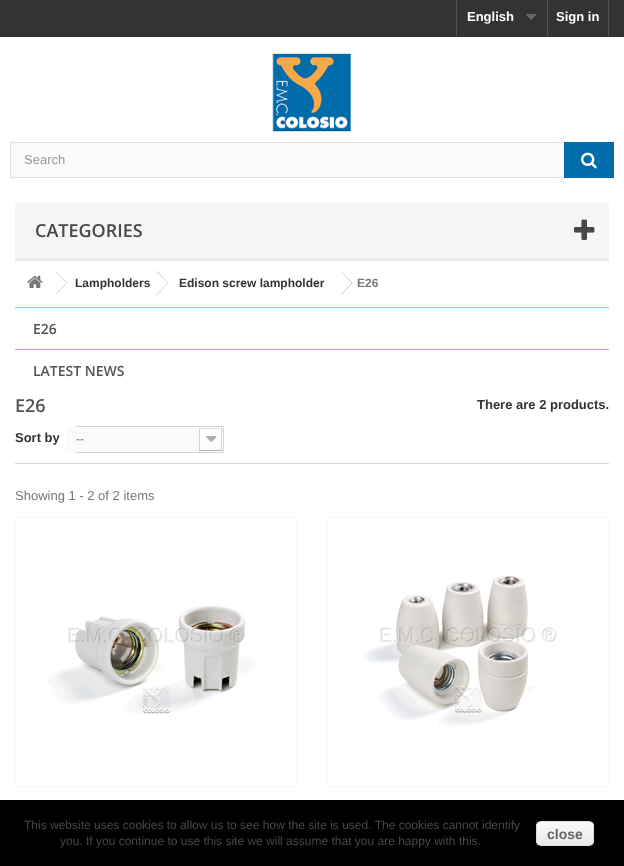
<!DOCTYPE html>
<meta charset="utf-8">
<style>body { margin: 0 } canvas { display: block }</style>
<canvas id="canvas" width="624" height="866"></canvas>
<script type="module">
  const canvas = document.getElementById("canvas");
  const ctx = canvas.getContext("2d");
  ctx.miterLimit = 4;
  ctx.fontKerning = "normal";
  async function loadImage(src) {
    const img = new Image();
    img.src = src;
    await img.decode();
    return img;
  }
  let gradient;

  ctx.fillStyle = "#ffffff";
  ctx.fillRect(0, 0, 624, 866);
  ctx.fillStyle = "#333333";
  ctx.fillRect(0, 0, 624, 37);
  ctx.fillStyle = "#515151";
  ctx.fillRect(456, 0, 1, 36);
  ctx.font = "bold 13px Liberation Sans";
  ctx.fillStyle = "#ffffff";
  ctx.fillText("English", 467, 21);
  ctx.drawImage(await loadImage("img1.png"), 526, 14, 11, 6);
  ctx.fillStyle = "#515151";
  ctx.fillRect(608, 0, 1, 37);
  ctx.fillRect(547, 0, 1, 37);
  ctx.fillStyle = "#ffffff";
  ctx.fillText("Sign in", 556, 21);
  ctx.drawImage(await loadImage("img2.png"), 272, 53, 79, 79);
  ctx.fillStyle = "#fbfbfb";
  ctx.fillRect(11, 143, 553, 34);
  ctx.strokeStyle = "#dedede";
  ctx.strokeRect(10.5, 142.5, 603, 35);
  ctx.font = "13px Liberation Sans";
  ctx.fillStyle = "#999999";
  ctx.fillText("Search", 24, 164);
  ctx.fillStyle = "#006ca9";
  ctx.fillRect(564, 142, 50, 36);
  ctx.drawImage(await loadImage("img3.png"), 581, 152, 16, 17);
  ctx.fillStyle = "#f6f6f6";
  ctx.fillRect(15, 202, 594, 56);
  ctx.fillStyle = "#e9e9e9";
  ctx.fillRect(15, 258, 594, 3);
  ctx.font = "600 18px Open Sans";
  ctx.fillStyle = "#484848";
  ctx.fillText("CATEGORIES", 35, 237);
  ctx.drawImage(await loadImage("img4.png"), 574, 219, 21, 21);
  ctx.drawImage(await loadImage("img5.png"), 27, 275, 16, 13);
  ctx.fillStyle = "#d6d4d4";
  ctx.beginPath();
  ctx.moveTo(55.5, 271);
  ctx.lineTo(67, 282.5);
  ctx.lineTo(66.5, 283);
  ctx.lineTo(55, 271.5);
  ctx.closePath();
  ctx.moveTo(66.5, 283);
  ctx.lineTo(67, 283.5);
  ctx.lineTo(55.5, 295);
  ctx.lineTo(55, 294.5);
  ctx.closePath();
  ctx.fill();
  ctx.font = "bold 12px Liberation Sans";
  ctx.fillStyle = "#333333";
  ctx.fillText("Lampholders", 75, 287);
  ctx.fillStyle = "#d6d4d4";
  ctx.beginPath();
  ctx.moveTo(157, 271);
  ctx.lineTo(168, 282.5);
  ctx.lineTo(167.5, 283);
  ctx.lineTo(156, 271.5);
  ctx.closePath();
  ctx.moveTo(167.5, 283);
  ctx.lineTo(168, 283.5);
  ctx.lineTo(157, 295);
  ctx.lineTo(156, 294.5);
  ctx.closePath();
  ctx.fill();
  ctx.fillStyle = "#333333";
  ctx.fillText("Edison screw lampholder", 179, 287);
  ctx.fillStyle = "#d6d4d4";
  ctx.beginPath();
  ctx.moveTo(341, 271);
  ctx.lineTo(352.5, 282.5);
  ctx.lineTo(351.5, 283);
  ctx.lineTo(340.5, 271.5);
  ctx.closePath();
  ctx.moveTo(351.5, 283);
  ctx.lineTo(352.5, 283.5);
  ctx.lineTo(341, 295);
  ctx.lineTo(340.5, 294.5);
  ctx.closePath();
  ctx.fill();
  ctx.fillStyle = "#777777";
  ctx.fillText("E26", 357, 287);
  ctx.fillStyle = "#f7a948";
  ctx.fillRect(15, 307, 594, 1);
  ctx.font = "600 14px Open Sans";
  ctx.fillStyle = "#555454";
  ctx.fillText("E26", 33, 334);
  ctx.fillStyle = "#f7a948";
  ctx.fillRect(15, 349, 594, 1);
  ctx.fillStyle = "#555454";
  ctx.fillText("LATEST NEWS", 33, 376);
  ctx.font = "600 18px Open Sans";
  ctx.fillText("E26", 15, 412);
  ctx.font = "bold 13px Liberation Sans";
  ctx.fillStyle = "#333333";
  ctx.fillText("There are 2 products.", 477, 409);
  ctx.fillStyle = "#d6d4d4";
  ctx.fillRect(15, 463, 594, 1);
  ctx.fillStyle = "#333333";
  ctx.fillText("Sort by", 15, 442);
  ctx.fillStyle = "#fbfbfb";
  ctx.fillRect(66, 426, 10, 27);
  ctx.drawImage(await loadImage("img6.png"), 76, 426, 148, 27);
  ctx.font = "12px Liberation Sans";
  ctx.fillStyle = "#666666";
  ctx.fillText("--", 76, 443);
  ctx.font = "13px Liberation Sans";
  ctx.fillStyle = "#777777";
  ctx.fillText("Showing 1 - 2 of 2 items", 15, 500);
  ctx.strokeStyle = "#f8f8f8";
  ctx.strokeRect(15.5, 517.5, 281, 269);
  ctx.drawImage(await loadImage("img7.png"), 45, 606, 213, 109);
  ctx.strokeRect(327.5, 517.5, 281, 269);
  ctx.drawImage(await loadImage("img8.png"), 364, 575, 193, 151);
  ctx.fillStyle = "#000000";
  ctx.fillRect(0, 800, 624, 66);
  ctx.font = "12px Liberation Sans";
  ctx.fillStyle = "#484848";
  ctx.fillText("This website uses cookies to allow us to see how the site is used. The cookies cannot identify", 24, 829);
  ctx.fillText("you. If you continue to use this site we will assume that you are happy with this.", 60, 845);
  ctx.save();
  ctx.beginPath();
  ctx.roundRect(536, 821, 58, 25, 5);
  ctx.clip();
  gradient = ctx.createLinearGradient(537, 822, 537, 845);
  gradient.addColorStop(0.05, "#f9f9f9");
  gradient.addColorStop(1, "#e9e9e9");
  ctx.fillStyle = gradient;
  ctx.fillRect(536, 822, 58, 23);
  ctx.restore();
  ctx.fillStyle = "#ffffff";
  ctx.beginPath();
  ctx.moveTo(541, 823);
  ctx.lineTo(589, 823);
  ctx.bezierCurveTo(591, 823, 593, 825, 593, 827);
  ctx.bezierCurveTo(593, 820, 586, 822, 581, 822);
  ctx.lineTo(549, 822);
  ctx.bezierCurveTo(544, 822, 537, 820, 537, 827);
  ctx.bezierCurveTo(537, 825, 539, 823, 541, 823);
  ctx.closePath();
  ctx.fill();
  ctx.beginPath();
  ctx.roundRect(536.5, 821.5, 57, 24, 4.5);
  ctx.strokeStyle = "#dcdcdc";
  ctx.stroke();
  ctx.font = "bold 14px Liberation Sans";
  ctx.fillStyle = "#666666";
  ctx.fillText("close", 547, 839);
</script>
